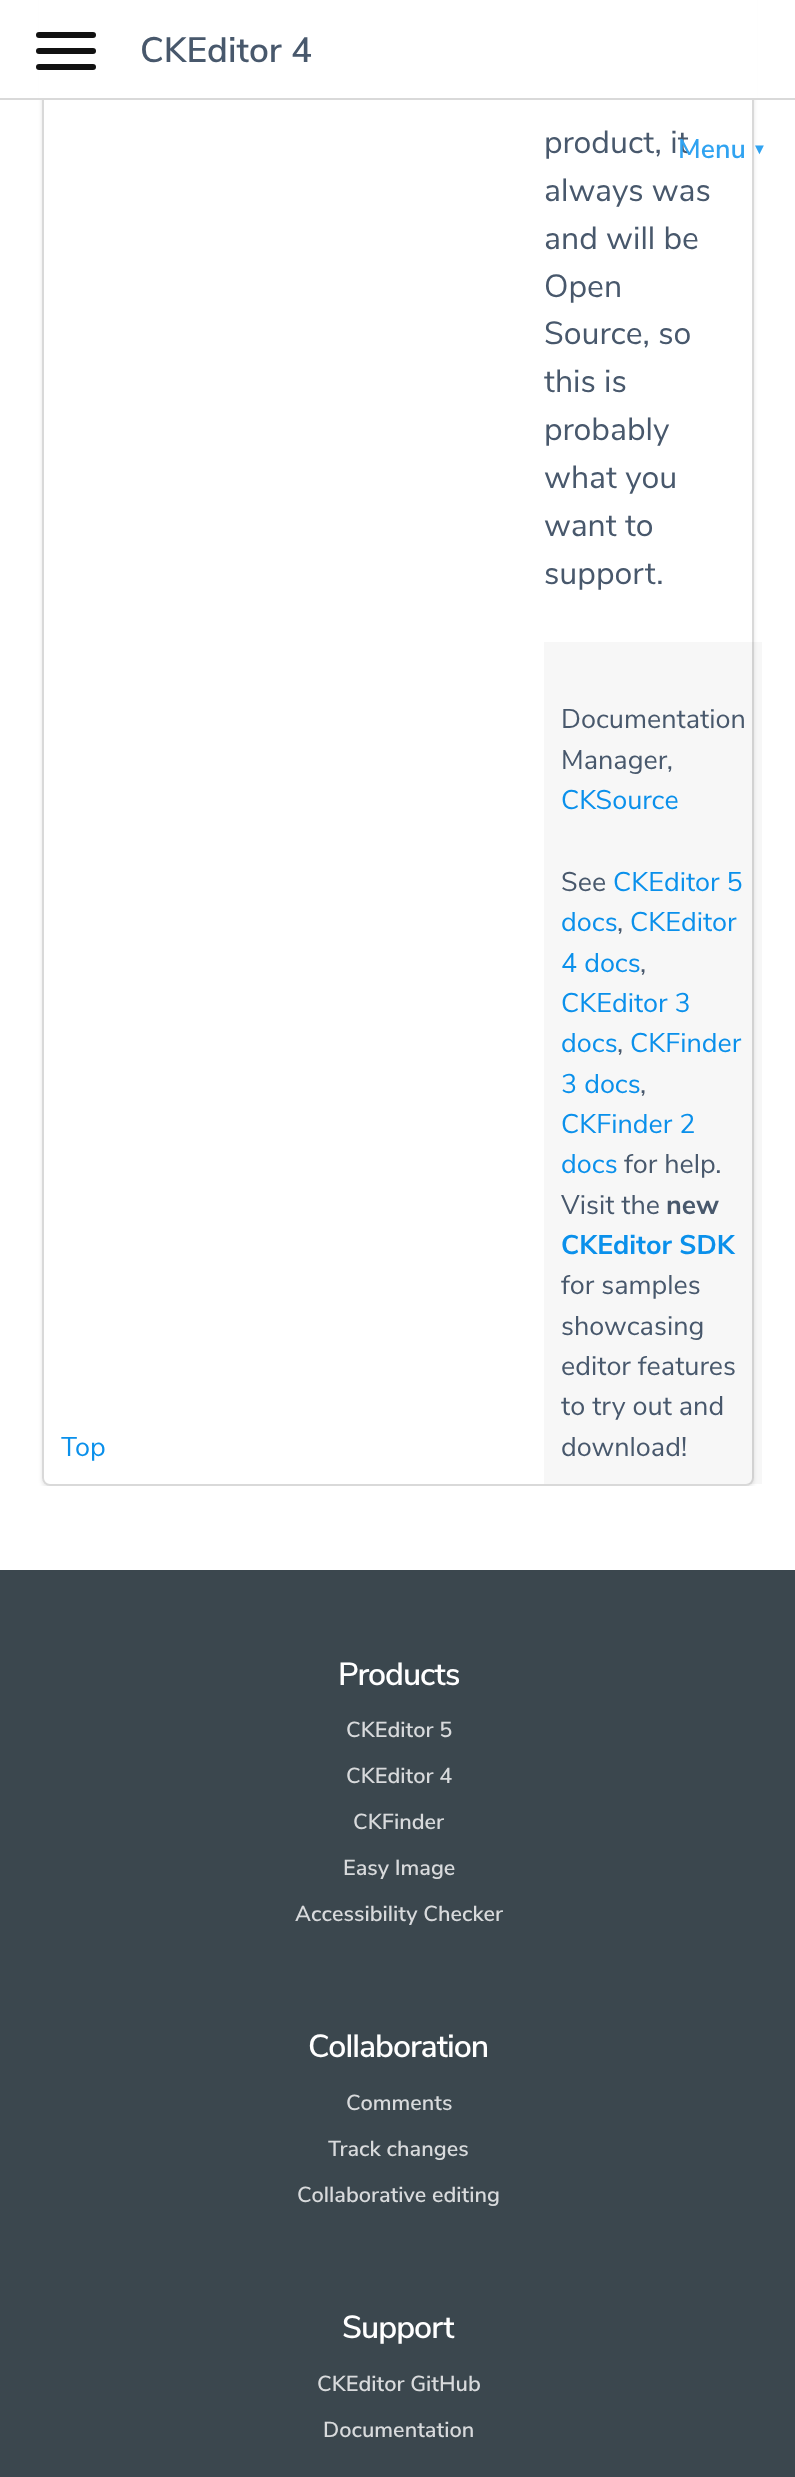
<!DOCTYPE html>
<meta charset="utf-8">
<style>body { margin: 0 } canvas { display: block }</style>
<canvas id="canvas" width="795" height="2477"></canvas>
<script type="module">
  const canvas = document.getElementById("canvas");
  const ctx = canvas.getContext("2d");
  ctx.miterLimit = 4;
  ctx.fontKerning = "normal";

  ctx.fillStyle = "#ffffff";
  ctx.fillRect(0, 0, 795, 2477);
  ctx.save();
  ctx.beginPath();
  ctx.rect(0, 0, 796, 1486);
  ctx.clip();
  ctx.beginPath();
  ctx.moveTo(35, 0);
  ctx.lineTo(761, 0);
  ctx.lineTo(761, 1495);
  ctx.lineTo(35, 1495);
  ctx.closePath();
  ctx.moveTo(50, -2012);
  ctx.lineTo(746, -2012);
  ctx.bezierCurveTo(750.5, -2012, 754, -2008.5, 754, -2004);
  ctx.lineTo(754, 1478);
  ctx.bezierCurveTo(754, 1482.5, 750.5, 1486, 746, 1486);
  ctx.lineTo(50, 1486);
  ctx.bezierCurveTo(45.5, 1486, 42, 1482.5, 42, 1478);
  ctx.lineTo(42, -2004);
  ctx.bezierCurveTo(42, -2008.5, 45.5, -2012, 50, -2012);
  ctx.closePath();
  ctx.clip("evenodd");
  ctx.fillStyle = "rgba(0, 0, 0, 0.1)";
  ctx.filter = "blur(2px)";
  ctx.beginPath();
  ctx.roundRect(42, -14, 712, 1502, 8);
  ctx.fill();
  ctx.filter = "none";
  ctx.restore();
  ctx.beginPath();
  ctx.roundRect(43, -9, 710, 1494, 7);
  ctx.strokeStyle = "rgba(0, 0, 0, 0.15)";
  ctx.lineWidth = 2;
  ctx.stroke();
  ctx.fillRect(39, 0, 718, 98);
  ctx.fillStyle = "#111111";
  ctx.beginPath();
  ctx.roundRect(36, 32, 60, 6, 3);
  ctx.fill();
  ctx.beginPath();
  ctx.roundRect(36, 48, 60, 6, 3);
  ctx.fill();
  ctx.beginPath();
  ctx.roundRect(36, 64, 60, 6, 3);
  ctx.fill();
  ctx.fillStyle = "#d9d9d9";
  ctx.fillRect(0, 98, 795, 2);
  ctx.font = "600 35.25px Nunito Sans";
  ctx.fillStyle = "#48586c";
  ctx.fillText("CKEditor 4", 140, 62);
  ctx.font = "32px Nunito Sans";
  ctx.fillText("product, it", 544, 153);
  ctx.font = "600 27px Nunito Sans";
  ctx.fillStyle = "#30a3f1";
  ctx.fillText("Menu", 678, 158);
  ctx.font = "bold 15px Liberation Sans";
  ctx.fillText("▼", 752, 154);
  ctx.font = "27px Nunito Sans";
  ctx.fillStyle = "#0a90eb";
  ctx.fillText("Top", 61, 1456);
  ctx.font = "32px Nunito Sans";
  ctx.fillStyle = "#48586c";
  ctx.fillText("always was", 544, 201);
  ctx.fillText("and will be", 544, 249);
  ctx.fillText("Open", 544, 297);
  ctx.fillText("Source, so", 544, 344);
  ctx.fillText("this is", 544, 392);
  ctx.fillText("probably", 544, 440);
  ctx.fillText("what you", 544, 488);
  ctx.fillText("want to", 544, 536);
  ctx.fillText("support.", 544, 584);
  ctx.fillStyle = "rgba(0, 0, 0, 0.03)";
  ctx.fillRect(544, 642, 218, 842);
  ctx.font = "27px Nunito Sans";
  ctx.fillStyle = "#48586c";
  ctx.fillText("Documentation", 561, 728);
  ctx.fillText("Manager,", 561, 769);
  ctx.fillStyle = "#0a90eb";
  ctx.fillText("CKSource", 561, 809);
  ctx.fillStyle = "#48586c";
  ctx.fillText("See", 561, 891);
  ctx.fillStyle = "#0a90eb";
  ctx.fillText("CKEditor 5", 613, 891);
  ctx.fillText("docs", 561, 931);
  ctx.fillStyle = "#48586c";
  ctx.fillText(",", 617, 931);
  ctx.fillStyle = "#0a90eb";
  ctx.fillText("CKEditor", 630, 931);
  ctx.fillText("4 docs", 561, 972);
  ctx.fillStyle = "#48586c";
  ctx.fillText(",", 640, 972);
  ctx.fillStyle = "#0a90eb";
  ctx.fillText("CKEditor 3", 561, 1012);
  ctx.fillText("docs", 561, 1052);
  ctx.fillStyle = "#48586c";
  ctx.fillText(",", 617, 1052);
  ctx.fillStyle = "#0a90eb";
  ctx.fillText("CKFinder", 630, 1052);
  ctx.fillText("3 docs", 561, 1093);
  ctx.fillStyle = "#48586c";
  ctx.fillText(",", 640, 1093);
  ctx.fillStyle = "#0a90eb";
  ctx.fillText("CKFinder 2", 561, 1133);
  ctx.fillText("docs", 561, 1173);
  ctx.fillStyle = "#48586c";
  ctx.fillText("for help.", 624, 1173);
  ctx.fillText("Visit the", 561, 1214);
  ctx.font = "bold 27px Nunito Sans";
  ctx.fillText("new", 666, 1214);
  ctx.fillStyle = "#0a90eb";
  ctx.fillText("CKEditor SDK", 561, 1254);
  ctx.font = "27px Nunito Sans";
  ctx.fillStyle = "#48586c";
  ctx.fillText("for samples", 561, 1294);
  ctx.fillText("showcasing", 561, 1335);
  ctx.fillText("editor features", 561, 1375);
  ctx.fillText("to try out and", 561, 1415);
  ctx.fillText("download!", 561, 1456);
  ctx.fillStyle = "#3b474e";
  ctx.fillRect(0, 1570, 795, 907);
  ctx.letterSpacing = "-1px";
  ctx.font = "600 32px Nunito Sans";
  ctx.fillStyle = "#ffffff";
  ctx.fillText("Products", 338, 1685);
  ctx.letterSpacing = "0px";
  ctx.font = "600 21.75px Nunito Sans";
  ctx.fillStyle = "#d8dadc";
  ctx.fillText("CKEditor 5", 346, 1737);
  ctx.fillText("CKEditor 4", 346, 1783);
  ctx.fillText("CKFinder", 353, 1829);
  ctx.fillText("Easy Image", 343, 1875);
  ctx.fillText("Accessibility Checker", 295, 1921);
  ctx.letterSpacing = "-1px";
  ctx.font = "600 32px Nunito Sans";
  ctx.fillStyle = "#ffffff";
  ctx.fillText("Collaboration", 308, 2057);
  ctx.letterSpacing = "0px";
  ctx.font = "600 21.75px Nunito Sans";
  ctx.fillStyle = "#d8dadc";
  ctx.fillText("Comments", 346, 2110);
  ctx.fillText("Track changes", 328, 2156);
  ctx.fillText("Collaborative editing", 297, 2202);
  ctx.letterSpacing = "-1px";
  ctx.font = "600 32px Nunito Sans";
  ctx.fillStyle = "#ffffff";
  ctx.fillText("Support", 342, 2338);
  ctx.letterSpacing = "0px";
  ctx.font = "600 21.75px Nunito Sans";
  ctx.fillStyle = "#d8dadc";
  ctx.fillText("CKEditor GitHub", 317, 2391);
  ctx.fillText("Documentation", 323, 2437);
</script>
